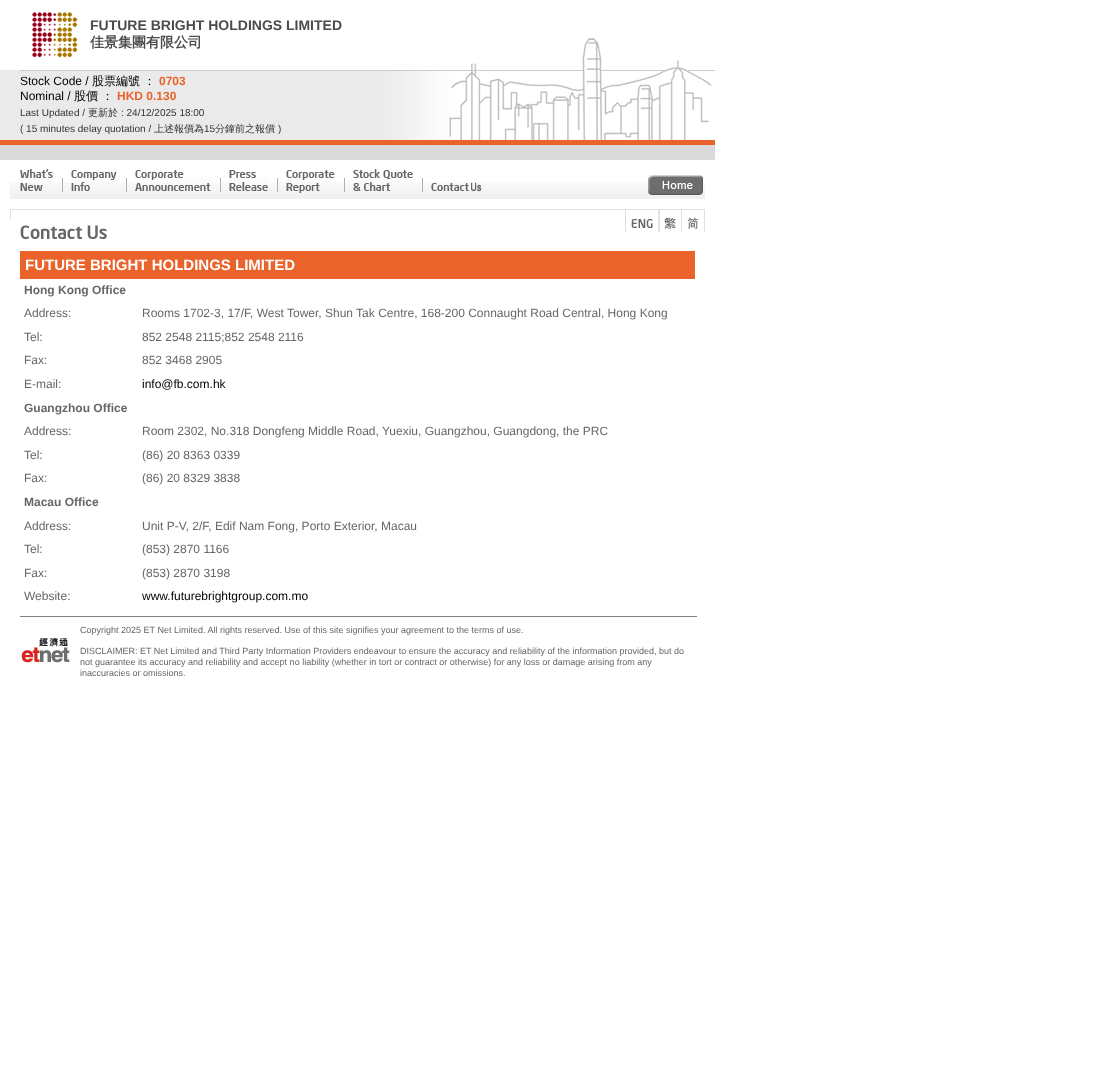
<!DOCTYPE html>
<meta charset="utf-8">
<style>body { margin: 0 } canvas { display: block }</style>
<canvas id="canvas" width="1109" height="1069"></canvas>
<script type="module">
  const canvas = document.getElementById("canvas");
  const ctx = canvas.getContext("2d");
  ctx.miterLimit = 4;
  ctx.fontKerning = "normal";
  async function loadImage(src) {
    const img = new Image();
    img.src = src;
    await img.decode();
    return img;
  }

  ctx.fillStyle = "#ffffff";
  ctx.fillRect(0, 0, 1109, 1069);
  ctx.drawImage(await loadImage("img1.png"), 32, 12, 46, 46);
  ctx.drawImage(await loadImage("img2.png"), 471, 38, 216, 32);
  ctx.font = "bold 14px Liberation Sans";
  ctx.fillStyle = "#4c4c4c";
  ctx.fillText("FUTURE BRIGHT HOLDINGS LIMITED", 90, 30);
  ctx.font = "bold 14px WenQuanYi Zen Hei";
  ctx.fillText("佳景集團有限公司", 90, 47);
  ctx.fillStyle = "#eaeaea";
  ctx.fillRect(0, 70, 20, 70);
  ctx.drawImage(await loadImage("img3.png"), 20, 70, 695, 70);
  ctx.font = "12px Liberation Sans";
  ctx.fillStyle = "#000000";
  ctx.fillText("Stock Code /", 20, 85);
  ctx.font = "500 12px WenQuanYi Zen Hei";
  ctx.fillText("股票編號 ：", 92, 85);
  ctx.font = "bold 12px Liberation Sans";
  ctx.fillStyle = "#e9632a";
  ctx.fillText("0703", 159, 85);
  ctx.font = "12px Liberation Sans";
  ctx.fillStyle = "#000000";
  ctx.fillText("Nominal /", 20, 100);
  ctx.font = "500 12px WenQuanYi Zen Hei";
  ctx.fillText("股價 ：", 74, 100);
  ctx.font = "bold 12px Liberation Sans";
  ctx.fillStyle = "#e9632a";
  ctx.fillText("HKD 0.130", 117, 100);
  ctx.font = "10px Liberation Sans";
  ctx.fillStyle = "#333333";
  ctx.fillText("Last Updated /", 20, 116);
  ctx.font = "500 10px WenQuanYi Zen Hei";
  ctx.fillText("更新於", 88, 116);
  ctx.font = "10px Liberation Sans";
  ctx.fillText(": 24/12/2025 18:00", 121, 116);
  ctx.fillText("( 15 minutes delay quotation /", 20, 132);
  ctx.font = "500 10px WenQuanYi Zen Hei";
  ctx.fillText("上述報價為", 154, 132);
  ctx.font = "10px Liberation Sans";
  ctx.fillText("15", 204, 132);
  ctx.font = "500 10px WenQuanYi Zen Hei";
  ctx.fillText("分鐘前之報價", 215, 132);
  ctx.font = "10px Liberation Sans";
  ctx.fillText(")", 278, 132);
  ctx.fillStyle = "#e9632a";
  ctx.fillRect(0, 140, 715, 5);
  ctx.fillStyle = "#dadada";
  ctx.fillRect(0, 145, 715, 15);
  ctx.drawImage(await loadImage("img4.png"), 10, 182, 10, 17);
  ctx.drawImage(await loadImage("img5.png"), 20, 182, 626, 17);
  ctx.drawImage(await loadImage("img6.png"), 20, 169, 33, 22);
  ctx.fillStyle = "#b0b0b0";
  ctx.fillRect(62, 178, 1, 14);
  ctx.drawImage(await loadImage("img7.png"), 71, 170, 46, 21);
  ctx.fillRect(126, 178, 1, 14);
  ctx.drawImage(await loadImage("img8.png"), 135, 170, 76, 21);
  ctx.fillRect(220, 178, 1, 14);
  ctx.drawImage(await loadImage("img9.png"), 229, 170, 39, 21);
  ctx.fillRect(277, 178, 1, 14);
  ctx.drawImage(await loadImage("img10.png"), 286, 170, 49, 23);
  ctx.fillRect(344, 178, 1, 14);
  ctx.drawImage(await loadImage("img11.png"), 353, 169, 60, 22);
  ctx.fillRect(422, 178, 1, 14);
  ctx.drawImage(await loadImage("img12.png"), 431, 182, 51, 10);
  ctx.drawImage(await loadImage("img13.png"), 646, 182, 59, 17);
  ctx.drawImage(await loadImage("img14.png"), 648, 175, 55, 20);
  ctx.drawImage(await loadImage("img15.png"), 10, 209, 615, 30);
  ctx.drawImage(await loadImage("img16.png"), 625, 209, 34, 23);
  ctx.drawImage(await loadImage("img17.png"), 659, 209, 23, 23);
  ctx.drawImage(await loadImage("img18.png"), 682, 209, 23, 23);
  ctx.fillStyle = "#e9632a";
  ctx.fillRect(20, 251, 675, 28);
  ctx.font = "bold 15px Liberation Sans";
  ctx.fillStyle = "#ffffff";
  ctx.fillText("FUTURE BRIGHT HOLDINGS LIMITED", 25, 270);
  ctx.font = "bold 12px Liberation Sans";
  ctx.fillStyle = "#666666";
  ctx.fillText("Hong Kong Office", 24, 294);
  ctx.font = "12px Liberation Sans";
  ctx.fillText("Address:", 24, 317);
  ctx.fillText("Rooms 1702-3, 17/F, West Tower, Shun Tak Centre, 168-200 Connaught Road Central, Hong Kong", 142, 317);
  ctx.fillText("Tel:", 24, 341);
  ctx.fillText("852 2548 2115;852 2548 2116", 142, 341);
  ctx.fillText("Fax:", 24, 364);
  ctx.fillText("852 3468 2905", 142, 364);
  ctx.fillText("E-mail:", 24, 388);
  ctx.fillStyle = "#000000";
  ctx.fillText("info@fb.com.hk", 142, 388);
  ctx.font = "bold 12px Liberation Sans";
  ctx.fillStyle = "#666666";
  ctx.fillText("Guangzhou Office", 24, 412);
  ctx.font = "12px Liberation Sans";
  ctx.fillText("Address:", 24, 435);
  ctx.fillText("Room 2302, No.318 Dongfeng Middle Road, Yuexiu, Guangzhou, Guangdong, the PRC", 142, 435);
  ctx.fillText("Tel:", 24, 459);
  ctx.fillText("(86) 20 8363 0339", 142, 459);
  ctx.fillText("Fax:", 24, 482);
  ctx.fillText("(86) 20 8329 3838", 142, 482);
  ctx.font = "bold 12px Liberation Sans";
  ctx.fillText("Macau Office", 24, 506);
  ctx.font = "12px Liberation Sans";
  ctx.fillText("Address:", 24, 530);
  ctx.fillText("Unit P-V, 2/F, Edif Nam Fong, Porto Exterior, Macau", 142, 530);
  ctx.fillText("Tel:", 24, 553);
  ctx.fillText("(853) 2870 1166", 142, 553);
  ctx.fillText("Fax:", 24, 577);
  ctx.fillText("(853) 2870 3198", 142, 577);
  ctx.fillText("Website:", 24, 600);
  ctx.fillStyle = "#000000";
  ctx.fillText("www.futurebrightgroup.com.mo", 142, 600);
  ctx.fillStyle = "#808080";
  ctx.fillRect(20, 616, 677, 1);
  ctx.drawImage(await loadImage("img19.png"), 21, 637, 49, 26);
  ctx.font = "9px Liberation Sans";
  ctx.fillStyle = "#666666";
  ctx.fillText("Copyright 2025 ET Net Limited. All rights reserved. Use of this site signifies your agreement to the terms of use.", 80, 633);
  ctx.fillText("DISCLAIMER: ET Net Limited and Third Party Information Providers endeavour to ensure the accuracy and reliability of the information provided, but do", 80, 654);
  ctx.fillText("not guarantee its accuracy and reliability and accept no liability (whether in tort or contract or otherwise) for any loss or damage arising from any", 80, 665);
  ctx.fillText("inaccuracies or omissions.", 80, 676);
</script>
